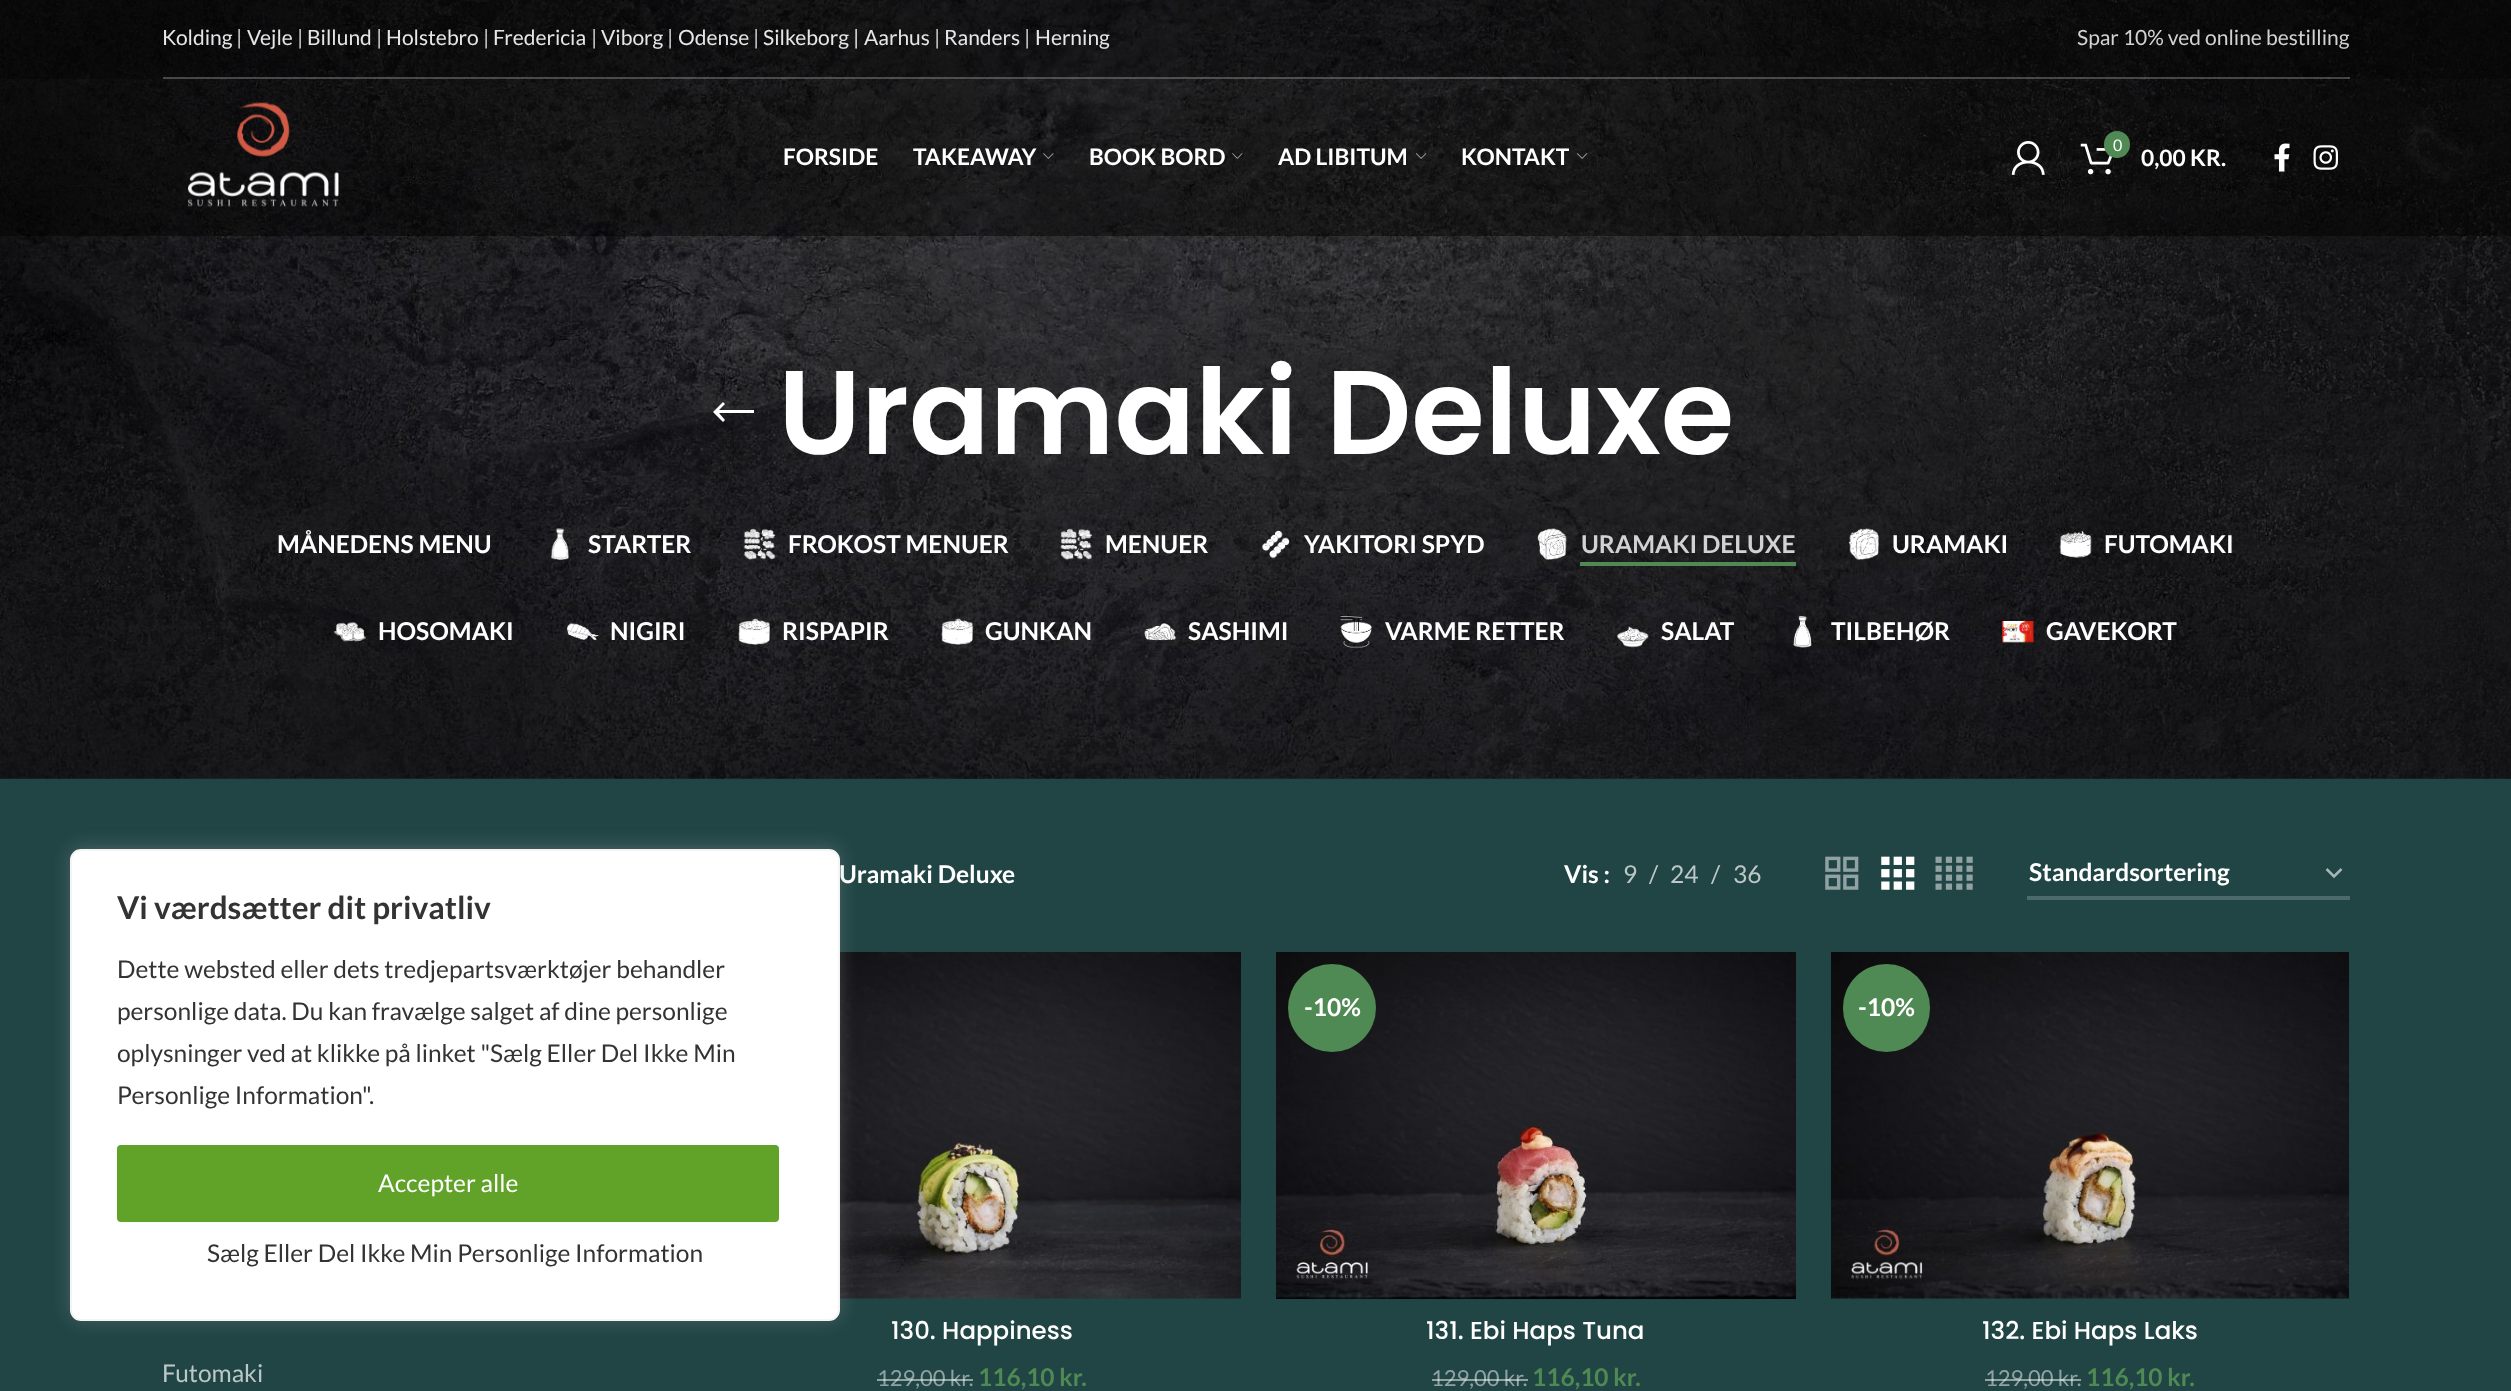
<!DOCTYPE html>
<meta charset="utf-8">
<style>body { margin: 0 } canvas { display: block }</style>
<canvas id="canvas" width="2511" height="1391"></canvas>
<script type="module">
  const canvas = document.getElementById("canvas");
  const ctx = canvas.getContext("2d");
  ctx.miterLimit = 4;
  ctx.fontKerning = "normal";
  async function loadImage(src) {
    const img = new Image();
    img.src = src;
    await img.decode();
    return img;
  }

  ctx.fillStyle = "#214545";
  ctx.fillRect(0, 0, 2511, 1391);
  ctx.drawImage(await loadImage("img10.png"), 0, 0, 2511, 779);
  ctx.fillStyle = "rgba(0, 0, 0, 0.6)";
  ctx.fillRect(0, 0, 2511, 79);
  ctx.fillStyle = "rgba(255, 255, 255, 0.25)";
  ctx.fillRect(163, 77, 2187, 2);
  ctx.font = "21px Lato";
  ctx.fillStyle = "#e6e6e7";
  ctx.fillText("Kolding", 162, 45);
  ctx.fillStyle = "#d2d2d2";
  ctx.fillText("|", 236, 45);
  ctx.fillStyle = "#e6e6e7";
  ctx.fillText("Vejle", 247, 45);
  ctx.fillStyle = "#d2d2d2";
  ctx.fillText("|", 297, 45);
  ctx.fillStyle = "#e6e6e7";
  ctx.fillText("Billund", 307, 45);
  ctx.fillStyle = "#d2d2d2";
  ctx.fillText("|", 376, 45);
  ctx.fillStyle = "#e6e6e7";
  ctx.fillText("Holstebro", 386, 45);
  ctx.fillStyle = "#d2d2d2";
  ctx.fillText("|", 483, 45);
  ctx.fillStyle = "#e6e6e7";
  ctx.fillText("Fredericia", 493, 45);
  ctx.fillStyle = "#d2d2d2";
  ctx.fillText("|", 591, 45);
  ctx.fillStyle = "#e6e6e7";
  ctx.fillText("Viborg", 601, 45);
  ctx.fillStyle = "#d2d2d2";
  ctx.fillText("|", 667, 45);
  ctx.fillStyle = "#e6e6e7";
  ctx.fillText("Odense", 678, 45);
  ctx.fillStyle = "#d2d2d2";
  ctx.fillText("|", 753, 45);
  ctx.fillStyle = "#e6e6e7";
  ctx.fillText("Silkeborg |", 763, 45);
  ctx.fillText("Aarhus", 864, 45);
  ctx.fillStyle = "#d2d2d2";
  ctx.fillText("|", 934, 45);
  ctx.fillStyle = "#e6e6e7";
  ctx.fillText("Randers", 944, 45);
  ctx.fillStyle = "#d2d2d2";
  ctx.fillText("|", 1024, 45);
  ctx.fillStyle = "#e6e6e7";
  ctx.fillText("Herning", 1035, 45);
  ctx.fillStyle = "#d2d2d2";
  ctx.fillText("Spar 10% ved online bestilling", 2077, 45);
  ctx.fillStyle = "rgba(0, 0, 0, 0.45)";
  ctx.fillRect(0, 79, 2511, 157);
  ctx.drawImage(await loadImage("img1.png"), 188, 101, 151, 106);
  ctx.font = "bold 22.75px Lato";
  ctx.fillStyle = "#ffffff";
  ctx.fillText("FORSIDE", 783, 165);
  ctx.fillText("TAKEAWAY", 913, 165);
  ctx.drawImage(await loadImage("img2.png"), 1043, 153, 11, 6);
  ctx.fillText("BOOK BORD", 1089, 165);
  ctx.drawImage(await loadImage("img3.png"), 1232, 153, 11, 6);
  ctx.fillText("AD LIBITUM", 1278, 165);
  ctx.drawImage(await loadImage("img4.png"), 1415, 153, 12, 6);
  ctx.fillText("KONTAKT", 1461, 165);
  ctx.drawImage(await loadImage("img5.png"), 1576, 153, 12, 6);
  ctx.drawImage(await loadImage("img6.png"), 2011, 141, 34, 34);
  ctx.drawImage(await loadImage("img7.png"), 2080, 143, 32, 32);
  ctx.fillStyle = "#4f8953";
  ctx.beginPath();
  ctx.roundRect(2104, 131, 26, 27, 13);
  ctx.fill();
  ctx.font = "16px Lato";
  ctx.fillStyle = "#ffffff";
  ctx.fillText("0", 2113, 151);
  ctx.font = "bold 22.75px Lato";
  ctx.fillText("0,00 KR.", 2141, 166);
  ctx.drawImage(await loadImage("img8.png"), 2274, 143, 16, 29);
  ctx.drawImage(await loadImage("img9.png"), 2313, 145, 25, 25);
  ctx.beginPath();
  ctx.moveTo(725, 420);
  ctx.lineTo(719, 413);
  ctx.lineTo(754, 413);
  ctx.lineTo(754, 410);
  ctx.lineTo(719, 410);
  ctx.lineTo(725, 404);
  ctx.lineTo(723, 402);
  ctx.lineTo(713, 412);
  ctx.lineTo(723, 422);
  ctx.closePath();
  ctx.fill();
  ctx.font = "600 119px Poppins";
  ctx.fillText("Uramaki Deluxe", 778, 454);
  ctx.font = "bold 24.5px Lato";
  ctx.fillText("MÅNEDENS MENU", 277, 553);
  ctx.drawImage(await loadImage("img11.png"), 551, 528, 19, 32);
  ctx.fillText("STARTER", 588, 553);
  ctx.drawImage(await loadImage("img12.png"), 743, 528, 33, 32);
  ctx.fillText("FROKOST MENUER", 788, 553);
  ctx.drawImage(await loadImage("img13.png"), 1060, 528, 32, 32);
  ctx.fillText("MENUER", 1105, 553);
  ctx.drawImage(await loadImage("img14.png"), 1261, 530, 29, 29);
  ctx.fillText("YAKITORI SPYD", 1304, 553);
  ctx.drawImage(await loadImage("img15.png"), 1537, 528, 30, 32);
  ctx.fillStyle = "#d2d2d2";
  ctx.fillText("URAMAKI DELUXE", 1581, 553);
  ctx.fillStyle = "#4f8953";
  ctx.fillRect(1580, 562, 216, 4);
  ctx.drawImage(await loadImage("img16.png"), 1848, 528, 31, 32);
  ctx.fillStyle = "#ffffff";
  ctx.fillText("URAMAKI", 1892, 553);
  ctx.drawImage(await loadImage("img17.png"), 2059, 531, 33, 27);
  ctx.fillText("FUTOMAKI", 2104, 553);
  ctx.drawImage(await loadImage("img18.png"), 334, 621, 32, 21);
  ctx.fillText("HOSOMAKI", 378, 640);
  ctx.drawImage(await loadImage("img19.png"), 567, 623, 32, 17);
  ctx.fillText("NIGIRI", 610, 640);
  ctx.drawImage(await loadImage("img20.png"), 738, 618, 32, 27);
  ctx.fillText("RISPAPIR", 782, 640);
  ctx.drawImage(await loadImage("img21.png"), 941, 618, 32, 27);
  ctx.fillText("GUNKAN", 985, 640);
  ctx.drawImage(await loadImage("img22.png"), 1144, 622, 32, 19);
  ctx.fillText("SASHIMI", 1188, 640);
  ctx.drawImage(await loadImage("img23.png"), 1340, 616, 32, 32);
  ctx.fillText("VARME RETTER", 1385, 640);
  ctx.drawImage(await loadImage("img24.png"), 1617, 626, 32, 22);
  ctx.fillText("SALAT", 1661, 640);
  ctx.drawImage(await loadImage("img25.png"), 1793, 616, 19, 32);
  ctx.fillText("TILBEHØR", 1831, 640);
  ctx.drawImage(await loadImage("img26.png"), 2002, 620, 32, 23);
  ctx.fillText("GAVEKORT", 2046, 640);
  ctx.font = "24.5px Lato";
  ctx.fillStyle = "#bcc7c7";
  ctx.fillText("Futomaki", 162, 1382);
  ctx.font = "bold 24.5px Lato";
  ctx.fillStyle = "#ffffff";
  ctx.fillText("Uramaki Deluxe", 839, 883);
  ctx.fillText("Vis :", 1564, 883);
  ctx.font = "24.5px Lato";
  ctx.fillStyle = "#bcc7c7";
  ctx.fillText("9", 1623, 883);
  ctx.fillText("/", 1649, 883);
  ctx.fillText("24", 1670, 883);
  ctx.fillText("/", 1711, 883);
  ctx.fillText("36", 1733, 883);
  ctx.drawImage(await loadImage("img27.png"), 1825, 856, 34, 34);
  ctx.drawImage(await loadImage("img28.png"), 1881, 856, 34, 34);
  ctx.drawImage(await loadImage("img29.png"), 1935, 856, 38, 34);
  ctx.beginPath();
  ctx.moveTo(2326.5, 869);
  ctx.lineTo(2334, 876.5);
  ctx.lineTo(2341.5, 869);
  ctx.strokeStyle = "#a6b5b5";
  ctx.lineWidth = 2.5;
  ctx.stroke();
  ctx.fillStyle = "#4d6a6a";
  ctx.fillRect(2027, 896, 323, 4);
  ctx.font = "bold 24.5px Lato";
  ctx.fillStyle = "#ffffff";
  ctx.fillText("Standardsortering", 2029, 881);
  ctx.drawImage(await loadImage("img30.png"), 840, 952, 401, 347);
  ctx.font = "500 24.5px Poppins";
  ctx.fillText("130. Happiness", 891, 1339);
  ctx.font = "22px Lato";
  ctx.fillStyle = "#90a2a2";
  ctx.fillText("129,00 kr.", 877, 1386);
  ctx.fillStyle = "rgba(255, 255, 255, 0.5)";
  ctx.fillRect(877, 1379, 72, 2);
  ctx.fillRect(949, 1379, 24, 2);
  ctx.font = "bold 24.5px Lato";
  ctx.fillStyle = "#4f8953";
  ctx.fillText("116,10 kr.", 978, 1386);
  ctx.drawImage(await loadImage("img31.png"), 1276, 952, 520, 347);
  ctx.beginPath();
  ctx.arc(1332, 1008, 44, 0, Math.PI * 2);
  ctx.fill();
  ctx.fillStyle = "#ffffff";
  ctx.fillText("-10%", 1304, 1016);
  ctx.font = "500 24.5px Poppins";
  ctx.fillText("131. Ebi Haps Tuna", 1426, 1339);
  ctx.font = "22px Lato";
  ctx.fillStyle = "#90a2a2";
  ctx.fillText("129,00 kr.", 1431, 1386);
  ctx.fillStyle = "rgba(255, 255, 255, 0.5)";
  ctx.fillRect(1432, 1379, 71, 2);
  ctx.fillRect(1503, 1379, 25, 2);
  ctx.font = "bold 24.5px Lato";
  ctx.fillStyle = "#4f8953";
  ctx.fillText("116,10 kr.", 1532, 1386);
  ctx.drawImage(await loadImage("img32.png"), 1831, 952, 518, 347);
  ctx.beginPath();
  ctx.roundRect(1843, 964, 87, 88, 43.5);
  ctx.fill();
  ctx.fillStyle = "#ffffff";
  ctx.fillText("-10%", 1858, 1016);
  ctx.font = "500 24.5px Poppins";
  ctx.fillText("132. Ebi Haps Laks", 1982, 1339);
  ctx.font = "22px Lato";
  ctx.fillStyle = "#90a2a2";
  ctx.fillText("129,00 kr.", 1985, 1386);
  ctx.fillStyle = "rgba(255, 255, 255, 0.5)";
  ctx.fillRect(1985, 1379, 73, 2);
  ctx.fillRect(2058, 1379, 23, 2);
  ctx.font = "bold 24.5px Lato";
  ctx.fillStyle = "#4f8953";
  ctx.fillText("116,10 kr.", 2086, 1386);
  ctx.fillStyle = "rgba(172, 171, 171, 0.3)";
  ctx.filter = "blur(9px)";
  ctx.beginPath();
  ctx.roundRect(70, 847, 770, 473, 11);
  ctx.fill();
  ctx.filter = "none";
  ctx.fillStyle = "#ffffff";
  ctx.beginPath();
  ctx.roundRect(71, 850, 768, 470, 10);
  ctx.fill();
  ctx.strokeStyle = "#f4f4f4";
  ctx.lineWidth = 2;
  ctx.stroke();
  ctx.font = "bold 31.5px Lato";
  ctx.fillStyle = "#333333";
  ctx.fillText("Vi værdsætter dit privatliv", 117, 919);
  ctx.font = "24.5px Lato";
  ctx.fillText("Dette websted eller dets tredjepartsværktøjer behandler", 117, 978);
  ctx.fillText("personlige data. Du kan fravælge salget af dine personlige", 117, 1020);
  ctx.fillText("oplysninger ved at klikke på linket \"Sælg Eller Del Ikke Min", 117, 1062);
  ctx.fillText("Personlige Information\".", 117, 1104);
  ctx.fillStyle = "#61a229";
  ctx.beginPath();
  ctx.roundRect(119, 1147, 658, 73, 2);
  ctx.fill();
  ctx.strokeStyle = "#61a229";
  ctx.lineWidth = 4;
  ctx.stroke();
  ctx.fillStyle = "#ffffff";
  ctx.fillText("Accepter alle", 378, 1192);
  ctx.fillStyle = "#333333";
  ctx.fillText("Sælg Eller Del Ikke Min Personlige Information", 207, 1262);
</script>
